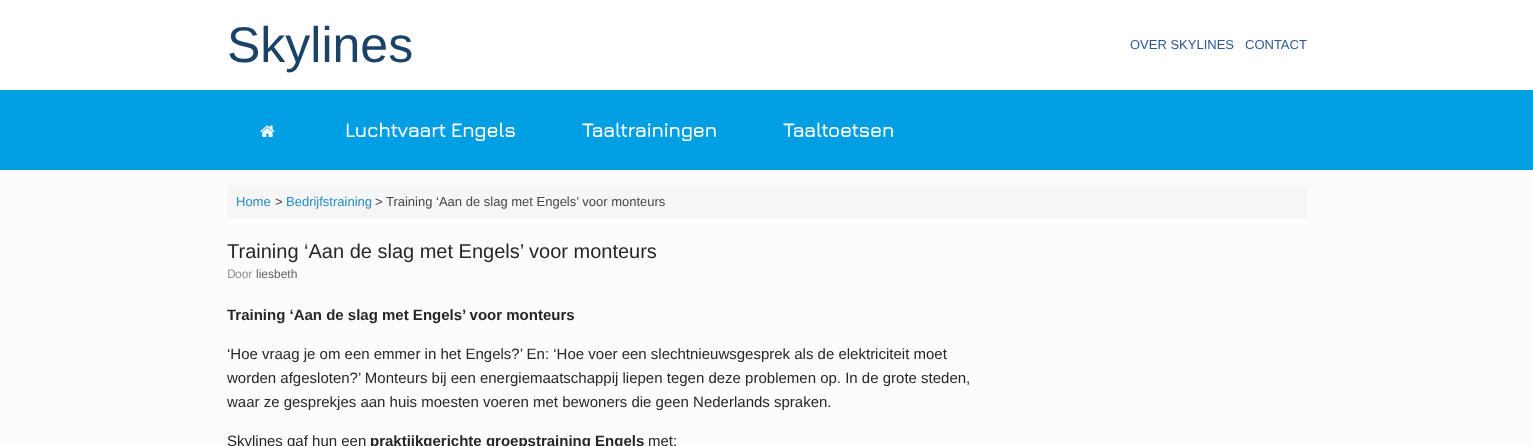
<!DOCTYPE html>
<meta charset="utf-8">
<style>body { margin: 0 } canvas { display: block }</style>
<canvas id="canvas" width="1533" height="446"></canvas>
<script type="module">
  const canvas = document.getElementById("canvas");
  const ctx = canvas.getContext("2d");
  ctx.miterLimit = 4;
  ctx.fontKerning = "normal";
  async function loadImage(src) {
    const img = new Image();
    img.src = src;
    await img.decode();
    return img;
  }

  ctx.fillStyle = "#ffffff";
  ctx.fillRect(0, 0, 1533, 446);
  ctx.font = "50px Liberation Sans";
  ctx.fillStyle = "#1b4367";
  ctx.fillText("Skylines", 227, 62);
  ctx.font = "13px Liberation Sans";
  ctx.fillStyle = "#2f5597";
  ctx.fillText("OVER SKYLINES", 1130, 49);
  ctx.fillText("CONTACT", 1245, 49);
  ctx.fillStyle = "#009fe3";
  ctx.fillRect(0, 90, 1533, 80);
  ctx.drawImage(await loadImage("img1.png"), 260, 125, 15, 12);
  ctx.font = "bold 20px Jura";
  ctx.fillStyle = "#ffffff";
  ctx.fillText("Luchtvaart Engels", 345, 137);
  ctx.fillText("Taaltrainingen", 582, 137);
  ctx.fillText("Taaltoetsen", 783, 137);
  ctx.fillStyle = "#fcfcfc";
  ctx.fillRect(0, 170, 1533, 276);
  ctx.fillStyle = "#f6f6f6";
  ctx.fillRect(227, 185, 1080, 33);
  ctx.font = "13px Liberation Sans";
  ctx.fillStyle = "#248cc8";
  ctx.fillText("Home", 236, 206);
  ctx.fillStyle = "#474747";
  ctx.fillText(">", 275, 206);
  ctx.fillStyle = "#248cc8";
  ctx.fillText("Bedrijfstraining", 286, 206);
  ctx.fillStyle = "#474747";
  ctx.fillText("> Training ‘Aan de slag met Engels’ voor monteurs", 375, 206);
  ctx.font = "20px Liberation Sans";
  ctx.fillStyle = "#262626";
  ctx.fillText("Training ‘Aan de slag met Engels’ voor monteurs", 227, 258);
  ctx.font = "12px Noto Sans";
  ctx.fillStyle = "#8f8f8f";
  ctx.fillText("D", 227, 278);
  ctx.font = "12px Liberation Sans";
  ctx.fillText("oor", 235, 278);
  ctx.fillStyle = "#5e5e5e";
  ctx.fillText("liesbeth", 256, 278);
  ctx.font = "bold 15px Liberation Sans";
  ctx.fillStyle = "#262626";
  ctx.fillText("Training ‘Aan de slag met Engels’ voor monteurs", 227, 320);
  ctx.font = "15px Liberation Sans";
  ctx.fillText("‘Hoe vraag je om een emmer in het Engels?’ En: ‘Hoe voer een slechtnieuwsgesprek als de elektriciteit moet", 227, 359);
  ctx.fillText("worden afgesloten?’ Monteurs bij een energiemaatschappij liepen tegen deze problemen op. In de grote steden,", 227, 383);
  ctx.fillText("waar ze gesprekjes aan huis moesten voeren met bewoners die geen Nederlands spraken.", 227, 407);
  ctx.fillText("Skylines gaf hun een", 227, 446);
  ctx.font = "bold 15px Liberation Sans";
  ctx.fillText("praktijkgerichte groepstraining Engels", 370, 446);
  ctx.font = "15px Liberation Sans";
  ctx.fillText("met:", 648, 446);
</script>
